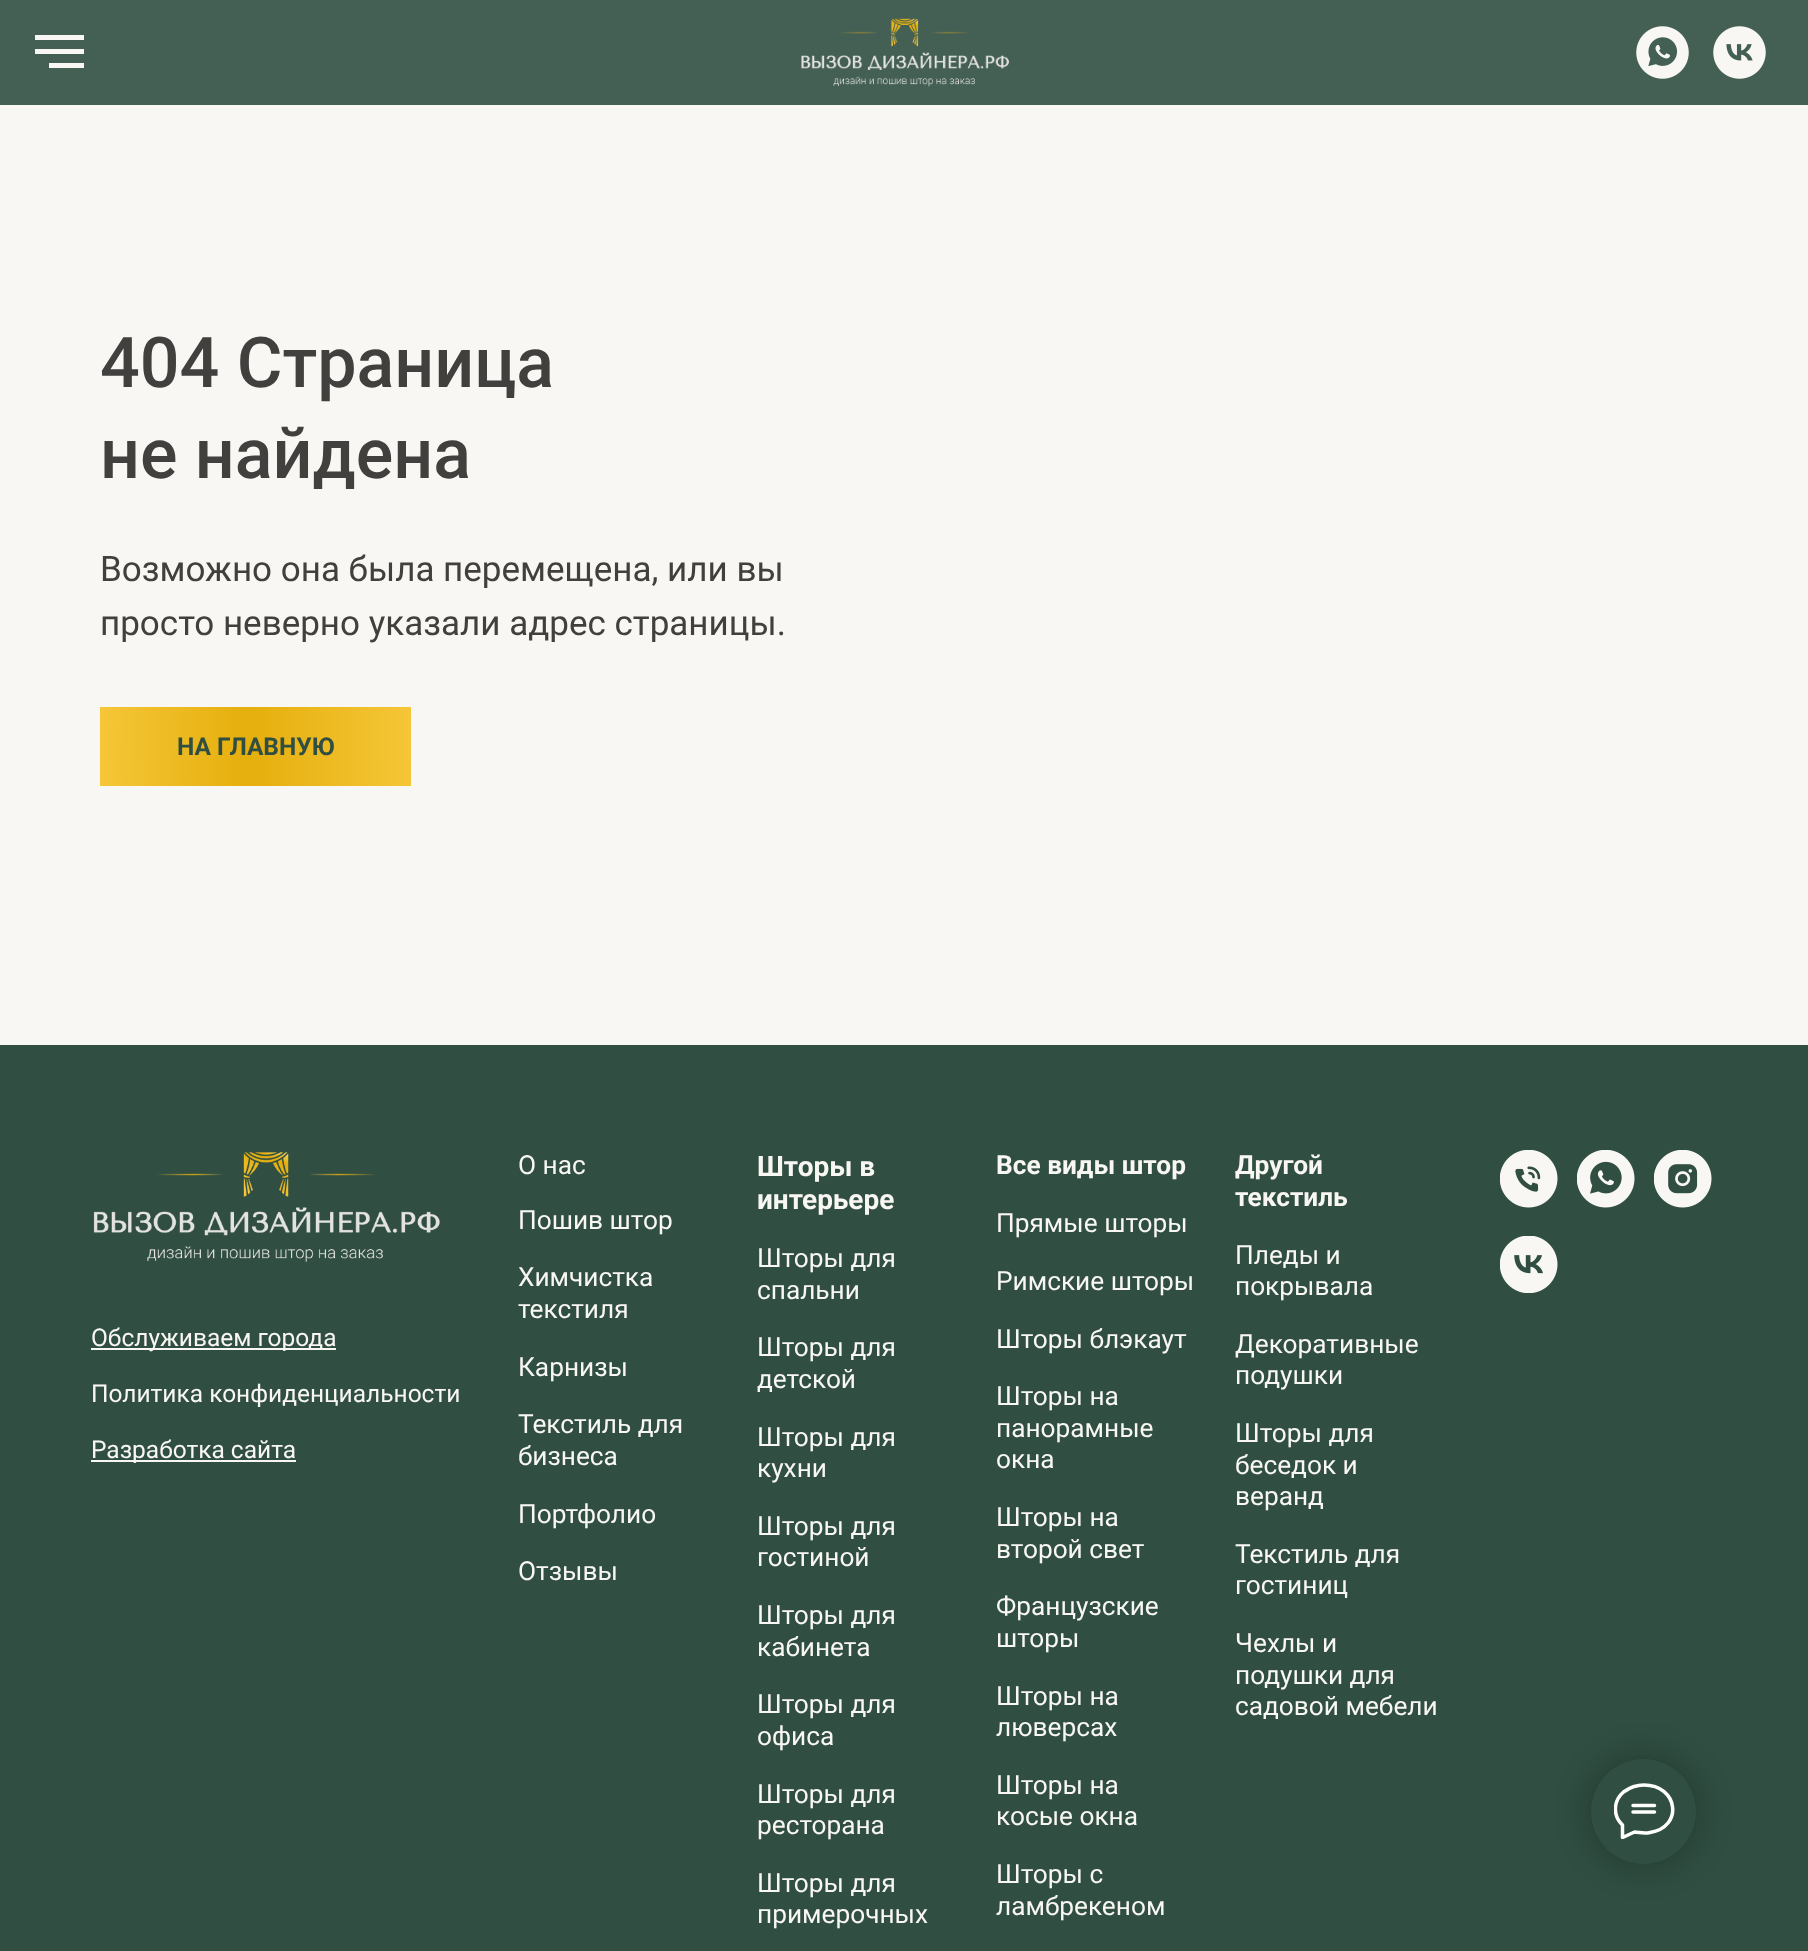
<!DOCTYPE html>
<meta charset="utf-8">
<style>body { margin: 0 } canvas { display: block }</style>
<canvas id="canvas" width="1808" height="1951"></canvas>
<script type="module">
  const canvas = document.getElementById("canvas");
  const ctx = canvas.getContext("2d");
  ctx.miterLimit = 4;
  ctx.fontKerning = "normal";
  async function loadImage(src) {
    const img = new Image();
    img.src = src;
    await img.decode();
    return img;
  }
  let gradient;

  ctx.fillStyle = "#304e42";
  ctx.fillRect(0, 0, 1808, 1951);
  ctx.fillStyle = "#445f54";
  ctx.fillRect(0, 0, 1808, 105);
  ctx.fillStyle = "#f8f7f3";
  ctx.fillRect(35, 35, 49, 5);
  ctx.fillRect(35, 49, 49, 5);
  ctx.fillRect(49, 63, 35, 5);
  ctx.drawImage(await loadImage("img1.png"), 801, 18, 208, 69);
  ctx.drawImage(await loadImage("img2.png"), 1636, 26, 53, 53);
  ctx.drawImage(await loadImage("img3.png"), 1713, 26, 53, 53);
  ctx.fillRect(0, 105, 1808, 940);
  ctx.font = "500 70px Roboto";
  ctx.fillStyle = "#41403e";
  ctx.fillText("404 Страница", 100, 387);
  ctx.fillText("не найдена", 100, 478);
  ctx.font = "35px Roboto";
  ctx.fillText("Возможно она была перемещена, или вы", 100, 581);
  ctx.fillText("просто неверно указали адрес страницы.", 100, 635);
  gradient = ctx.createLinearGradient(412, 744, 99, 748);
  gradient.addColorStop(0, "#f5c638");
  gradient.addColorStop(0.52, "#e5af0c");
  gradient.addColorStop(1, "#f5c638");
  ctx.fillStyle = gradient;
  ctx.fillRect(100, 707, 311, 79);
  ctx.font = "bold 24.5px Roboto";
  ctx.fillStyle = "#304e42";
  ctx.fillText("НА ГЛАВНУЮ", 177, 755);
  ctx.drawImage(await loadImage("img4.png"), 93, 1152, 347, 110);
  ctx.fillStyle = "#f8f7f3";
  ctx.fillRect(91, 1348, 245, 2);
  ctx.font = "24.5px Roboto";
  ctx.fillText("Обслуживаем города", 91, 1346);
  ctx.fillText("Политика конфиденциальности", 91, 1402);
  ctx.fillRect(91, 1460, 205, 2);
  ctx.fillText("Разработка сайта", 91, 1458);
  ctx.font = "26.25px Roboto";
  ctx.fillText("О нас", 518, 1174);
  ctx.fillText("Пошив штор", 518, 1229);
  ctx.fillText("Химчистка", 518, 1286);
  ctx.fillText("текстиля", 518, 1318);
  ctx.fillText("Карнизы", 518, 1376);
  ctx.fillText("Текстиль для", 518, 1433);
  ctx.fillText("бизнеса", 518, 1465);
  ctx.fillText("Портфолио", 518, 1523);
  ctx.fillText("Отзывы", 518, 1580);
  ctx.font = "bold 28px Roboto";
  ctx.fillText("Шторы в", 757, 1176);
  ctx.fillText("интерьере", 757, 1209);
  ctx.font = "26.25px Roboto";
  ctx.fillText("Шторы для", 757, 1267);
  ctx.fillText("спальни", 757, 1299);
  ctx.fillText("Шторы для", 757, 1356);
  ctx.fillText("детской", 757, 1388);
  ctx.fillText("Шторы для", 757, 1446);
  ctx.fillText("кухни", 757, 1477);
  ctx.fillText("Шторы для", 757, 1535);
  ctx.fillText("гостиной", 757, 1566);
  ctx.fillText("Шторы для", 757, 1624);
  ctx.fillText("кабинета", 757, 1656);
  ctx.fillText("Шторы для", 757, 1713);
  ctx.fillText("офиса", 757, 1745);
  ctx.fillText("Шторы для", 757, 1803);
  ctx.fillText("ресторана", 757, 1834);
  ctx.fillText("Шторы для", 757, 1892);
  ctx.fillText("примерочных", 757, 1923);
  ctx.font = "bold 26.25px Roboto";
  ctx.fillText("Все виды штор", 996, 1174);
  ctx.font = "26.25px Roboto";
  ctx.fillText("Прямые шторы", 996, 1232);
  ctx.fillText("Римские шторы", 996, 1290);
  ctx.fillText("Шторы блэкаут", 996, 1348);
  ctx.fillText("Шторы на", 996, 1405);
  ctx.fillText("панорамные", 996, 1437);
  ctx.fillText("окна", 996, 1468);
  ctx.fillText("Шторы на", 996, 1526);
  ctx.fillText("второй свет", 996, 1558);
  ctx.fillText("Французские", 996, 1615);
  ctx.fillText("шторы", 996, 1647);
  ctx.fillText("Шторы на", 996, 1705);
  ctx.fillText("люверсах", 996, 1736);
  ctx.fillText("Шторы на", 996, 1794);
  ctx.fillText("косые окна", 996, 1825);
  ctx.fillText("Шторы с", 996, 1883);
  ctx.fillText("ламбрекеном", 996, 1915);
  ctx.font = "bold 26.25px Roboto";
  ctx.fillText("Другой", 1235, 1174);
  ctx.fillText("текстиль", 1235, 1206);
  ctx.font = "26.25px Roboto";
  ctx.fillText("Пледы и", 1235, 1264);
  ctx.fillText("покрывала", 1235, 1295);
  ctx.fillText("Декоративные", 1235, 1353);
  ctx.fillText("подушки", 1235, 1384);
  ctx.fillText("Шторы для", 1235, 1442);
  ctx.fillText("беседок и", 1235, 1474);
  ctx.fillText("веранд", 1235, 1505);
  ctx.fillText("Текстиль для", 1235, 1563);
  ctx.fillText("гостиниц", 1235, 1594);
  ctx.fillText("Чехлы и", 1235, 1652);
  ctx.fillText("подушки для", 1235, 1684);
  ctx.fillText("садовой мебели", 1235, 1715);
  ctx.drawImage(await loadImage("img5.png"), 1500, 1150, 58, 58);
  ctx.drawImage(await loadImage("img6.png"), 1577, 1150, 58, 58);
  ctx.drawImage(await loadImage("img7.png"), 1654, 1150, 58, 58);
  ctx.drawImage(await loadImage("img8.png"), 1500, 1236, 58, 57);
  ctx.fillStyle = "rgba(0, 0, 0, 0.3)";
  ctx.filter = "blur(17.5px)";
  ctx.beginPath();
  ctx.roundRect(1591, 1759, 105, 105, 52.5);
  ctx.fill();
  ctx.filter = "none";
  ctx.fillStyle = "#304e42";
  ctx.beginPath();
  ctx.arc(1643.5, 1811.5, 52.5, 0, Math.PI * 2);
  ctx.fill();
  ctx.save();
  ctx.beginPath();
  ctx.rect(1614, 1783, 61, 56);
  ctx.clip();
  ctx.beginPath();
  ctx.moveTo(1633, 1805.5);
  ctx.lineTo(1654.5, 1805.5);
  ctx.moveTo(1633, 1812);
  ctx.lineTo(1654.5, 1812);
  ctx.moveTo(1622, 1824.5);
  ctx.bezierCurveTo(1612.5, 1815, 1613.5, 1800.5, 1623.5, 1792);
  ctx.bezierCurveTo(1629.5, 1787.5, 1637, 1785, 1644, 1785);
  ctx.bezierCurveTo(1678, 1785, 1684, 1827, 1650, 1832.5);
  ctx.bezierCurveTo(1643.5, 1834, 1640.5, 1832.5, 1634.5, 1832);
  ctx.lineTo(1622.5, 1837.5);
  ctx.lineTo(1622.5, 1825);
  ctx.closePath();
  ctx.strokeStyle = "#ffffff";
  ctx.lineWidth = 3.5;
  ctx.lineCap = "round";
  ctx.lineJoin = "round";
  ctx.stroke();
  ctx.restore();
</script>
